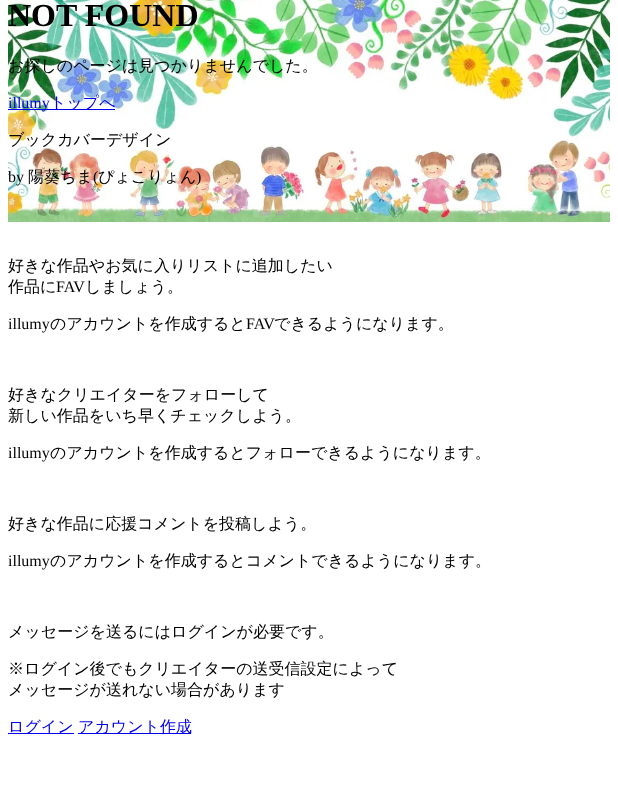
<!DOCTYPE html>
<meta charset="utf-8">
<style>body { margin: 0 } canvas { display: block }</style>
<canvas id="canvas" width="618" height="798"></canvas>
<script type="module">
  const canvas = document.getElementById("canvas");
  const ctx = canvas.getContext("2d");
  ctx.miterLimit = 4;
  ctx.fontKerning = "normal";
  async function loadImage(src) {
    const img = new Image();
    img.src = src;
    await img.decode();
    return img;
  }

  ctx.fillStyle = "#ffffff";
  ctx.fillRect(0, 0, 618, 798);
  ctx.drawImage(await loadImage("img1.png"), 8, 0, 602, 222);
  ctx.font = "bold 32px Liberation Serif";
  ctx.fillStyle = "#000000";
  ctx.fillText("NOT FOUND", 8, 26);
  ctx.font = "500 16px WenQuanYi Zen Hei";
  ctx.fillText("お探しのページは見つかりませんでした。", 8, 71);
  ctx.fillStyle = "#0000ee";
  ctx.fillRect(8, 109, 107, 1);
  ctx.font = "16px Liberation Serif";
  ctx.fillText("illumy", 8, 108);
  ctx.font = "500 16px WenQuanYi Zen Hei";
  ctx.fillText("トップへ", 50, 108);
  ctx.fillStyle = "#000000";
  ctx.fillText("ブックカバーデザイン", 8, 145);
  ctx.font = "16px Liberation Serif";
  ctx.fillText("by", 8, 182);
  ctx.font = "500 16px WenQuanYi Zen Hei";
  ctx.fillText("陽葵ちま", 28, 182);
  ctx.font = "16px Liberation Serif";
  ctx.fillText("(", 93, 182);
  ctx.font = "500 16px WenQuanYi Zen Hei";
  ctx.fillText("ぴょこりょん", 98, 182);
  ctx.font = "16px Liberation Serif";
  ctx.fillText(")", 196, 182);
  ctx.font = "500 16px WenQuanYi Zen Hei";
  ctx.fillText("好きな作品やお気に入りリストに追加したい", 8, 271);
  ctx.fillText("作品に", 8, 292);
  ctx.font = "16px Liberation Serif";
  ctx.fillText("FAV", 56, 292);
  ctx.font = "500 16px WenQuanYi Zen Hei";
  ctx.fillText("しましょう。", 85, 292);
  ctx.font = "16px Liberation Serif";
  ctx.fillText("illumy", 8, 329);
  ctx.font = "500 16px WenQuanYi Zen Hei";
  ctx.fillText("のアカウントを作成すると", 50, 329);
  ctx.font = "16px Liberation Serif";
  ctx.fillText("FAV", 246, 329);
  ctx.font = "500 16px WenQuanYi Zen Hei";
  ctx.fillText("できるようになります。", 274, 329);
  ctx.fillText("好きなクリエイターをフォローして", 8, 400);
  ctx.fillText("新しい作品をいち早くチェックしよう。", 8, 421);
  ctx.font = "16px Liberation Serif";
  ctx.fillText("illumy", 8, 458);
  ctx.font = "500 16px WenQuanYi Zen Hei";
  ctx.fillText("のアカウントを作成するとフォローできるようになります。", 50, 458);
  ctx.fillText("好きな作品に応援コメントを投稿しよう。", 8, 529);
  ctx.font = "16px Liberation Serif";
  ctx.fillText("illumy", 8, 566);
  ctx.font = "500 16px WenQuanYi Zen Hei";
  ctx.fillText("のアカウントを作成するとコメントできるようになります。", 50, 566);
  ctx.fillText("メッセージを送るにはログインが必要です。", 8, 637);
  ctx.fillText("※ログイン後でもクリエイターの送受信設定によって", 8, 674);
  ctx.fillText("メッセージが送れない場合があります", 8, 695);
  ctx.fillStyle = "#0000ee";
  ctx.fillRect(8, 733, 66, 1);
  ctx.fillText("ログイン", 8, 732);
  ctx.fillRect(78, 733, 113, 1);
  ctx.fillText("アカウント作成", 78, 732);
</script>
